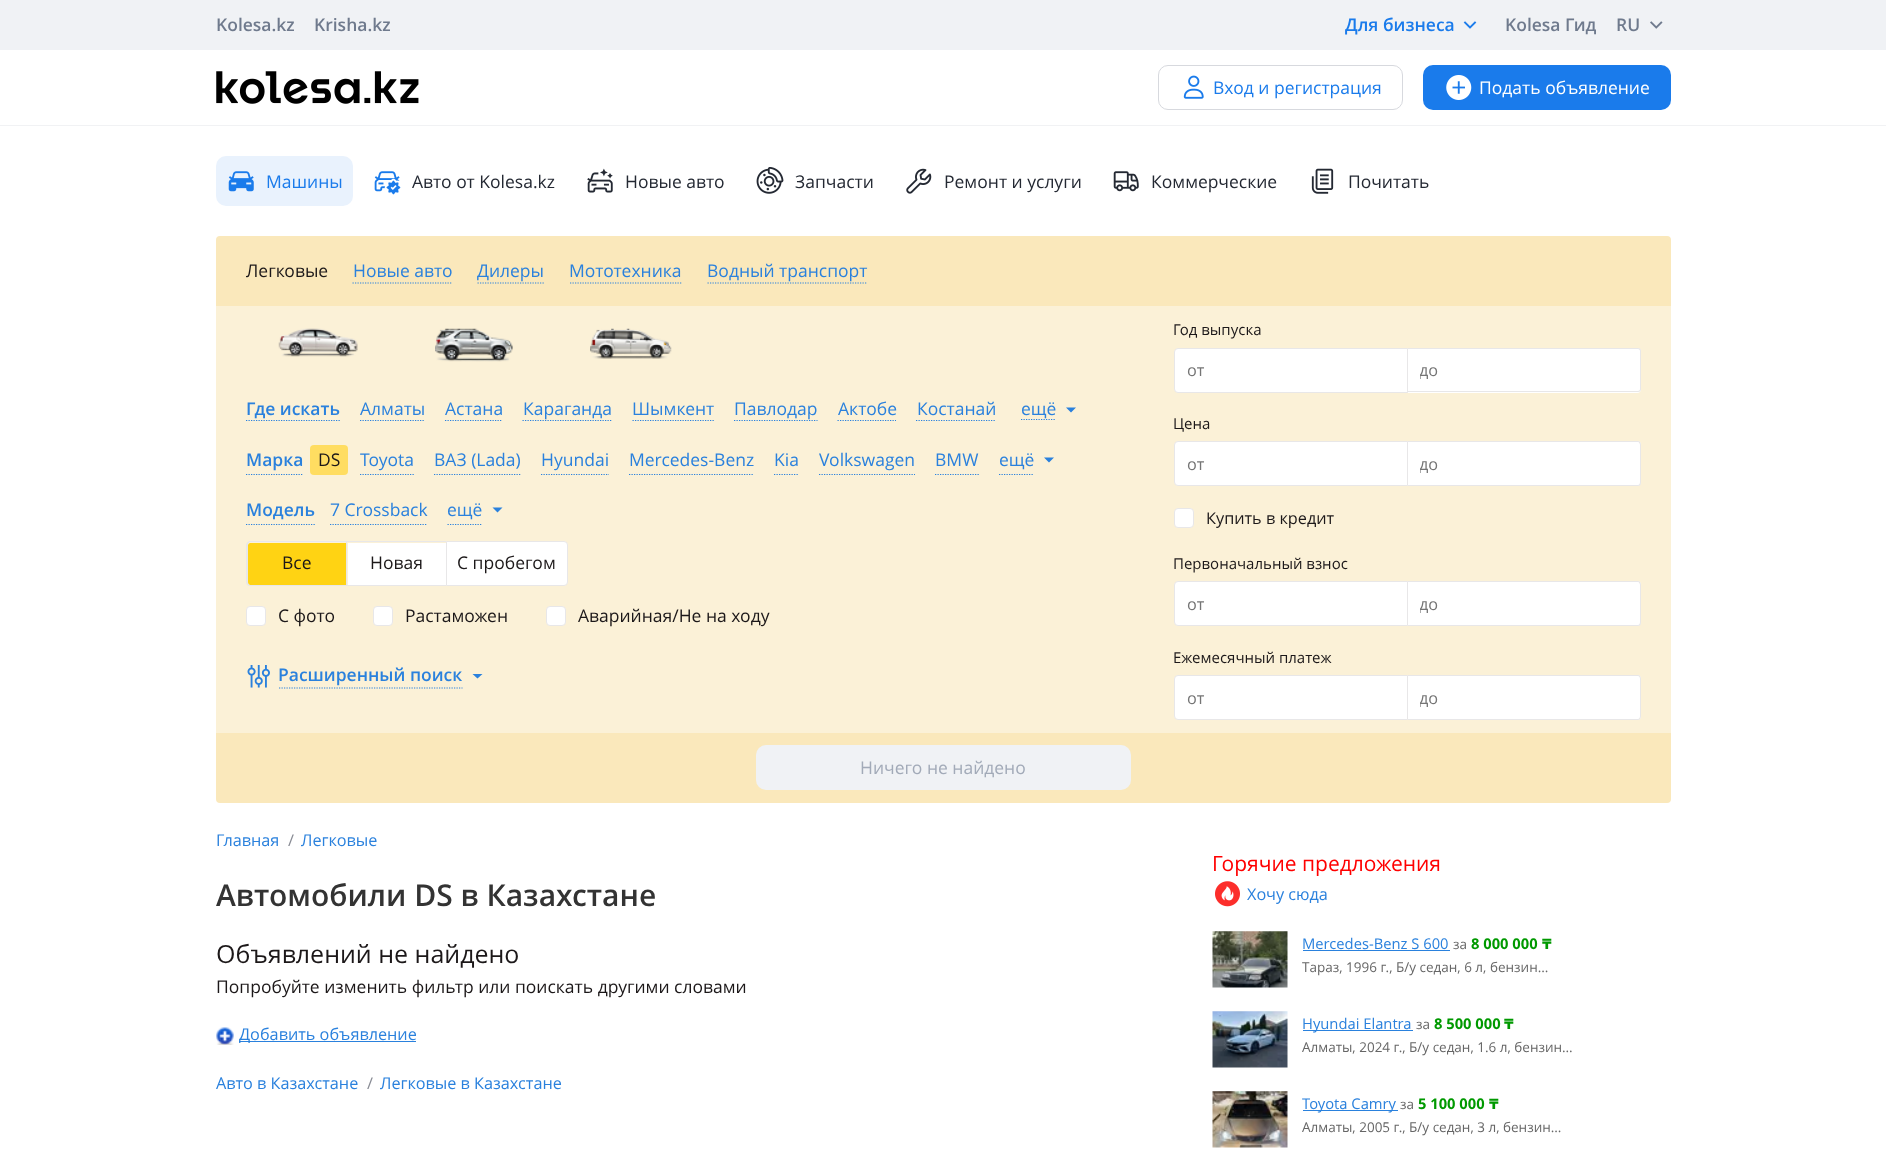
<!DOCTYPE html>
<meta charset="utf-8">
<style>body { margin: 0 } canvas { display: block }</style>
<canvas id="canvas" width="1886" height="1159"></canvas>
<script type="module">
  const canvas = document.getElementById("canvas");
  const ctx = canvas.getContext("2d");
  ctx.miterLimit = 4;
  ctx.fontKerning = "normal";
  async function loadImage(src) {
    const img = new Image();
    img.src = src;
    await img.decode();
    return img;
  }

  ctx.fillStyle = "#ffffff";
  ctx.fillRect(0, 0, 1886, 1159);
  ctx.fillStyle = "#f0f2f5";
  ctx.fillRect(0, 0, 1886, 50);
  ctx.font = "600 17.5px Open Sans";
  ctx.fillStyle = "#6f7a8d";
  ctx.fillText("Kolesa.kz", 216, 31);
  ctx.fillText("Krisha.kz", 314, 31);
  ctx.fillStyle = "#1a7beb";
  ctx.fillText("Для бизнеса", 1345, 31);
  ctx.drawImage(await loadImage("img1.png"), 1463, 21, 14, 8);
  ctx.fillStyle = "#6f7a8d";
  ctx.fillText("Kolesa Гид", 1505, 31);
  ctx.fillText("RU", 1616, 31);
  ctx.drawImage(await loadImage("img2.png"), 1650, 21, 13, 8);
  ctx.fillStyle = "#f1f2f4";
  ctx.fillRect(0, 125, 1886, 1);
  ctx.drawImage(await loadImage("img3.png"), 216, 71, 203, 33);
  ctx.beginPath();
  ctx.roundRect(1158.5, 65.5, 244, 44, 9.5);
  ctx.strokeStyle = "#d7d9de";
  ctx.stroke();
  ctx.drawImage(await loadImage("img4.png"), 1183, 75, 21, 24);
  ctx.font = "17.5px Open Sans";
  ctx.fillStyle = "#1a7beb";
  ctx.fillText("Вход и регистрация", 1213, 94);
  ctx.beginPath();
  ctx.roundRect(1423, 65, 248, 45, 10);
  ctx.fill();
  ctx.drawImage(await loadImage("img5.png"), 1446, 75, 26, 25);
  ctx.fillStyle = "#ffffff";
  ctx.fillText("Подать объявление", 1479, 94);
  ctx.fillStyle = "#e9f2fd";
  ctx.beginPath();
  ctx.roundRect(216, 156, 137, 50, 10);
  ctx.fill();
  ctx.drawImage(await loadImage("img6.png"), 228, 171, 26, 21);
  ctx.fillStyle = "#1a7beb";
  ctx.fillText("Машины", 266, 188);
  ctx.drawImage(await loadImage("img7.png"), 374, 171, 27, 24);
  ctx.fillStyle = "#242933";
  ctx.fillText("Авто от Kolesa.kz", 412, 188);
  ctx.drawImage(await loadImage("img8.png"), 587, 168, 26, 25);
  ctx.fillText("Новые авто", 625, 188);
  ctx.drawImage(await loadImage("img9.png"), 756, 167, 28, 27);
  ctx.fillText("Запчасти", 795, 188);
  ctx.drawImage(await loadImage("img10.png"), 906, 168, 26, 26);
  ctx.fillText("Ремонт и услуги", 944, 188);
  ctx.drawImage(await loadImage("img11.png"), 1113, 171, 26, 21);
  ctx.fillText("Коммерческие", 1151, 188);
  ctx.drawImage(await loadImage("img12.png"), 1311, 168, 23, 26);
  ctx.fillText("Почитать", 1348, 188);
  ctx.fillStyle = "#fae8bb";
  ctx.beginPath();
  ctx.roundRect(216, 236, 1455, 70, [4, 4, 0, 0]);
  ctx.fill();
  ctx.fillStyle = "#1c1819";
  ctx.fillText("Легковые", 246, 277);
  ctx.beginPath();
  ctx.moveTo(352.5, 283);
  ctx.lineTo(452.5, 283);
  ctx.strokeStyle = "#2a81dd";
  ctx.lineWidth = 1.2;
  ctx.setLineDash([1.25, 1.25]);
  ctx.stroke();
  ctx.fillStyle = "#2a81dd";
  ctx.fillText("Новые авто", 353, 277);
  ctx.beginPath();
  ctx.moveTo(477.5, 283);
  ctx.lineTo(545, 283);
  ctx.stroke();
  ctx.fillText("Дилеры", 477, 277);
  ctx.beginPath();
  ctx.moveTo(570, 283);
  ctx.lineTo(682.5, 283);
  ctx.stroke();
  ctx.fillText("Мототехника", 569, 277);
  ctx.beginPath();
  ctx.moveTo(707.5, 283);
  ctx.lineTo(867.5, 283);
  ctx.stroke();
  ctx.fillText("Водный транспорт", 707, 277);
  ctx.fillStyle = "#fbf1d7";
  ctx.fillRect(216, 306, 1455, 427);
  ctx.drawImage(await loadImage("img13.png"), 278, 328, 80, 29);
  ctx.drawImage(await loadImage("img14.png"), 435, 328, 78, 34);
  ctx.drawImage(await loadImage("img15.png"), 590, 328, 82, 31);
  ctx.font = "600 17.5px Open Sans";
  ctx.fillStyle = "#2a81dd";
  ctx.fillText("Где искать", 246, 415);
  ctx.beginPath();
  ctx.moveTo(246, 420.5);
  ctx.lineTo(340, 420.5);
  ctx.stroke();
  ctx.font = "17.5px Open Sans";
  ctx.fillText("Алматы", 360, 415);
  ctx.beginPath();
  ctx.moveTo(360, 420.5);
  ctx.lineTo(425, 420.5);
  ctx.stroke();
  ctx.fillText("Астана", 445, 415);
  ctx.beginPath();
  ctx.moveTo(445, 420.5);
  ctx.lineTo(502.5, 420.5);
  ctx.stroke();
  ctx.beginPath();
  ctx.moveTo(522.5, 420.5);
  ctx.lineTo(612.5, 420.5);
  ctx.stroke();
  ctx.fillText("Караганда", 523, 415);
  ctx.fillText("Шымкент", 632, 415);
  ctx.beginPath();
  ctx.moveTo(632.5, 420.5);
  ctx.lineTo(714, 420.5);
  ctx.stroke();
  ctx.beginPath();
  ctx.moveTo(734, 420.5);
  ctx.lineTo(817.5, 420.5);
  ctx.stroke();
  ctx.fillText("Павлодар", 734, 415);
  ctx.fillText("Актобе", 838, 415);
  ctx.beginPath();
  ctx.moveTo(837.5, 420.5);
  ctx.lineTo(896, 420.5);
  ctx.stroke();
  ctx.fillText("Костанай", 917, 415);
  ctx.beginPath();
  ctx.moveTo(916, 420.5);
  ctx.lineTo(996, 420.5);
  ctx.stroke();
  ctx.beginPath();
  ctx.moveTo(1021, 419.5);
  ctx.lineTo(1056, 419.5);
  ctx.stroke();
  ctx.fillText("ещё", 1021, 415);
  ctx.beginPath();
  ctx.moveTo(1076, 407.5);
  ctx.lineTo(1071, 412.5);
  ctx.lineTo(1066, 407.5);
  ctx.closePath();
  ctx.moveTo(1054, 457.5);
  ctx.lineTo(1049, 462.5);
  ctx.lineTo(1044, 457.5);
  ctx.closePath();
  ctx.fill();
  ctx.beginPath();
  ctx.moveTo(246, 474.5);
  ctx.lineTo(302.5, 474.5);
  ctx.stroke();
  ctx.font = "600 17.5px Open Sans";
  ctx.fillText("Марка", 246, 466);
  ctx.fillStyle = "#ffdd61";
  ctx.beginPath();
  ctx.roundRect(310, 445, 38, 30, 4);
  ctx.fill();
  ctx.font = "17.5px Open Sans";
  ctx.fillStyle = "#1c1819";
  ctx.fillText("DS", 318, 466);
  ctx.beginPath();
  ctx.moveTo(360, 474.5);
  ctx.lineTo(414, 474.5);
  ctx.stroke();
  ctx.fillStyle = "#2a81dd";
  ctx.fillText("Toyota", 360, 466);
  ctx.beginPath();
  ctx.moveTo(434, 474.5);
  ctx.lineTo(521, 474.5);
  ctx.stroke();
  ctx.fillText("ВАЗ (Lada)", 434, 466);
  ctx.beginPath();
  ctx.moveTo(541, 474.5);
  ctx.lineTo(609, 474.5);
  ctx.stroke();
  ctx.fillText("Hyundai", 541, 466);
  ctx.beginPath();
  ctx.moveTo(629, 474.5);
  ctx.lineTo(754, 474.5);
  ctx.stroke();
  ctx.fillText("Mercedes-Benz", 629, 466);
  ctx.beginPath();
  ctx.moveTo(774, 474.5);
  ctx.lineTo(799, 474.5);
  ctx.stroke();
  ctx.fillText("Kia", 774, 466);
  ctx.beginPath();
  ctx.moveTo(819, 474.5);
  ctx.lineTo(915, 474.5);
  ctx.stroke();
  ctx.fillText("Volkswagen", 819, 466);
  ctx.beginPath();
  ctx.moveTo(935, 474.5);
  ctx.lineTo(979, 474.5);
  ctx.stroke();
  ctx.fillText("BMW", 935, 466);
  ctx.beginPath();
  ctx.moveTo(999, 474.5);
  ctx.lineTo(1034, 474.5);
  ctx.stroke();
  ctx.fillText("ещё", 999, 466);
  ctx.beginPath();
  ctx.moveTo(246, 524.5);
  ctx.lineTo(315, 524.5);
  ctx.stroke();
  ctx.font = "600 17.5px Open Sans";
  ctx.fillText("Модель", 246, 516);
  ctx.beginPath();
  ctx.moveTo(330, 524.5);
  ctx.lineTo(427.5, 524.5);
  ctx.stroke();
  ctx.font = "17.5px Open Sans";
  ctx.fillText("7 Crossback", 330, 516);
  ctx.beginPath();
  ctx.moveTo(447.5, 524.5);
  ctx.lineTo(482.5, 524.5);
  ctx.stroke();
  ctx.fillText("ещё", 447, 516);
  ctx.beginPath();
  ctx.moveTo(502.5, 507.5);
  ctx.lineTo(497.5, 512.5);
  ctx.lineTo(492.5, 507.5);
  ctx.closePath();
  ctx.fill();
  ctx.fillStyle = "#ffd313";
  ctx.beginPath();
  ctx.roundRect(248, 543, 98, 42, [2.5, 0, 0, 2.5]);
  ctx.fill();
  ctx.fillStyle = "#e8e7e8";
  ctx.beginPath();
  ctx.moveTo(250, 541);
  ctx.lineTo(346, 541);
  ctx.lineTo(346, 586);
  ctx.lineTo(250, 586);
  ctx.bezierCurveTo(248, 586, 246, 585, 246, 582);
  ctx.lineTo(246, 545);
  ctx.bezierCurveTo(246, 543, 248, 541, 250, 541);
  ctx.closePath();
  ctx.moveTo(250, 542);
  ctx.lineTo(346, 542);
  ctx.lineTo(346, 585);
  ctx.lineTo(250, 585);
  ctx.bezierCurveTo(249, 585, 248, 584, 248, 582);
  ctx.lineTo(248, 545);
  ctx.bezierCurveTo(248, 544, 249, 542, 250, 542);
  ctx.closePath();
  ctx.fill("evenodd");
  ctx.fillStyle = "#1c1819";
  ctx.fillText("Все", 282, 569);
  ctx.fillStyle = "#ffffff";
  ctx.fillRect(348, 543, 98, 42);
  ctx.fillStyle = "#e8e7e8";
  ctx.fillRect(346, 541, 100, 1);
  ctx.fillRect(346, 585, 100, 1);
  ctx.fillRect(346, 541, 1, 45);
  ctx.fillStyle = "#1c1819";
  ctx.fillText("Новая", 370, 569);
  ctx.fillStyle = "#ffffff";
  ctx.beginPath();
  ctx.roundRect(446.5, 541.5, 121, 44, [0, 3.5, 3.5, 0]);
  ctx.fill();
  ctx.strokeStyle = "#e8e7e8";
  ctx.lineWidth = 1;
  ctx.setLineDash([]);
  ctx.stroke();
  ctx.fillStyle = "#1c1819";
  ctx.fillText("С пробегом", 457, 569);
  ctx.fillStyle = "#ffffff";
  ctx.beginPath();
  ctx.roundRect(246.5, 606.5, 19, 19, 3.5);
  ctx.fill();
  ctx.stroke();
  ctx.fillStyle = "#1c1819";
  ctx.fillText("С фото", 278, 622);
  ctx.fillStyle = "#ffffff";
  ctx.beginPath();
  ctx.roundRect(373.5, 606.5, 19, 19, 3.5);
  ctx.fill();
  ctx.stroke();
  ctx.fillStyle = "#1c1819";
  ctx.fillText("Растаможен", 405, 622);
  ctx.fillStyle = "#ffffff";
  ctx.beginPath();
  ctx.roundRect(546.5, 606.5, 19, 19, 3.5);
  ctx.fill();
  ctx.stroke();
  ctx.fillStyle = "#1c1819";
  ctx.fillText("Аварийная/Не на ходу", 578, 622);
  ctx.drawImage(await loadImage("img16.png"), 247, 665, 23, 23);
  ctx.beginPath();
  ctx.moveTo(279, 688);
  ctx.lineTo(462.5, 688);
  ctx.strokeStyle = "#2a81dd";
  ctx.lineWidth = 1.2;
  ctx.setLineDash([1.25, 1.25]);
  ctx.stroke();
  ctx.font = "600 17.5px Open Sans";
  ctx.fillStyle = "#2a81dd";
  ctx.fillText("Расширенный поиск", 278, 681);
  ctx.beginPath();
  ctx.moveTo(482.5, 674);
  ctx.lineTo(477.5, 678.5);
  ctx.lineTo(472.5, 674);
  ctx.closePath();
  ctx.fill();
  ctx.font = "15px Open Sans";
  ctx.fillStyle = "#1c1819";
  ctx.fillText("Год выпуска", 1173, 335);
  ctx.fillStyle = "#ffffff";
  ctx.beginPath();
  ctx.roundRect(1174.5, 348.5, 233, 44, [3.5, 0, 0, 3.5]);
  ctx.fill();
  ctx.strokeStyle = "#e8e7e8";
  ctx.lineWidth = 1;
  ctx.setLineDash([]);
  ctx.stroke();
  ctx.font = "16.25px Open Sans";
  ctx.fillStyle = "#757575";
  ctx.fillText("от", 1187, 376);
  ctx.fillStyle = "#ffffff";
  ctx.beginPath();
  ctx.roundRect(1408, 348, 233, 45, [0, 4, 4, 0]);
  ctx.fill();
  ctx.fillStyle = "#e8e7e8";
  ctx.beginPath();
  ctx.moveTo(1408, 348);
  ctx.lineTo(1638, 348);
  ctx.bezierCurveTo(1640, 348, 1641, 349, 1641, 351);
  ctx.lineTo(1641, 389);
  ctx.bezierCurveTo(1641, 391, 1640, 392, 1638, 392);
  ctx.lineTo(1408, 392);
  ctx.closePath();
  ctx.moveTo(1408, 349);
  ctx.lineTo(1638, 349);
  ctx.bezierCurveTo(1639, 349, 1640, 350, 1640, 351);
  ctx.lineTo(1640, 389);
  ctx.bezierCurveTo(1640, 390, 1639, 391, 1638, 391);
  ctx.lineTo(1408, 391);
  ctx.closePath();
  ctx.fill("evenodd");
  ctx.save();
  ctx.beginPath();
  ctx.rect(1420, 359, 189, 22);
  ctx.clip();
  ctx.fillStyle = "#757575";
  ctx.fillText("до", 1419, 376);
  ctx.restore();
  ctx.font = "15px Open Sans";
  ctx.fillStyle = "#1c1819";
  ctx.fillText("Цена", 1173, 429);
  ctx.fillStyle = "#ffffff";
  ctx.beginPath();
  ctx.roundRect(1174.5, 441.5, 233, 44, [3.5, 0, 0, 3.5]);
  ctx.fill();
  ctx.stroke();
  ctx.font = "16.25px Open Sans";
  ctx.fillStyle = "#757575";
  ctx.fillText("от", 1187, 470);
  ctx.fillStyle = "#ffffff";
  ctx.beginPath();
  ctx.roundRect(1408, 441, 233, 45, [0, 4, 4, 0]);
  ctx.fill();
  ctx.fillStyle = "#e8e7e8";
  ctx.beginPath();
  ctx.moveTo(1408, 441);
  ctx.lineTo(1638, 441);
  ctx.bezierCurveTo(1640, 441, 1641, 443, 1641, 445);
  ctx.lineTo(1641, 482);
  ctx.bezierCurveTo(1641, 485, 1640, 486, 1638, 486);
  ctx.lineTo(1408, 486);
  ctx.closePath();
  ctx.moveTo(1408, 442);
  ctx.lineTo(1638, 442);
  ctx.bezierCurveTo(1639, 442, 1640, 444, 1640, 445);
  ctx.lineTo(1640, 482);
  ctx.bezierCurveTo(1640, 484, 1639, 485, 1638, 485);
  ctx.lineTo(1408, 485);
  ctx.closePath();
  ctx.fill("evenodd");
  ctx.save();
  ctx.beginPath();
  ctx.rect(1420, 453, 208, 22);
  ctx.clip();
  ctx.fillStyle = "#757575";
  ctx.fillText("до", 1419, 470);
  ctx.restore();
  ctx.fillStyle = "#ffffff";
  ctx.beginPath();
  ctx.roundRect(1174.5, 508.5, 19, 19, 3.5);
  ctx.fill();
  ctx.stroke();
  ctx.fillStyle = "#1c1819";
  ctx.fillText("Купить в кредит", 1206, 524);
  ctx.font = "15px Open Sans";
  ctx.fillText("Первоначальный взнос", 1173, 569);
  ctx.fillStyle = "#ffffff";
  ctx.beginPath();
  ctx.roundRect(1174.5, 581.5, 233, 44, [3.5, 0, 0, 3.5]);
  ctx.fill();
  ctx.stroke();
  ctx.font = "16.25px Open Sans";
  ctx.fillStyle = "#757575";
  ctx.fillText("от", 1187, 610);
  ctx.fillStyle = "#ffffff";
  ctx.beginPath();
  ctx.roundRect(1408, 581, 233, 45, [0, 4, 4, 0]);
  ctx.fill();
  ctx.fillStyle = "#e8e7e8";
  ctx.beginPath();
  ctx.moveTo(1408, 581);
  ctx.lineTo(1638, 581);
  ctx.bezierCurveTo(1640, 581, 1641, 583, 1641, 585);
  ctx.lineTo(1641, 622);
  ctx.bezierCurveTo(1641, 625, 1640, 626, 1638, 626);
  ctx.lineTo(1408, 626);
  ctx.closePath();
  ctx.moveTo(1408, 582);
  ctx.lineTo(1638, 582);
  ctx.bezierCurveTo(1639, 582, 1640, 584, 1640, 585);
  ctx.lineTo(1640, 622);
  ctx.bezierCurveTo(1640, 624, 1639, 625, 1638, 625);
  ctx.lineTo(1408, 625);
  ctx.closePath();
  ctx.fill("evenodd");
  ctx.save();
  ctx.beginPath();
  ctx.rect(1420, 593, 208, 22);
  ctx.clip();
  ctx.fillStyle = "#757575";
  ctx.fillText("до", 1419, 610);
  ctx.restore();
  ctx.font = "15px Open Sans";
  ctx.fillStyle = "#1c1819";
  ctx.fillText("Ежемесячный платеж", 1173, 663);
  ctx.fillStyle = "#ffffff";
  ctx.beginPath();
  ctx.roundRect(1174.5, 675.5, 233, 44, [3.5, 0, 0, 3.5]);
  ctx.fill();
  ctx.stroke();
  ctx.font = "16.25px Open Sans";
  ctx.fillStyle = "#757575";
  ctx.fillText("от", 1187, 704);
  ctx.fillStyle = "#ffffff";
  ctx.beginPath();
  ctx.roundRect(1408, 675, 233, 45, [0, 4, 4, 0]);
  ctx.fill();
  ctx.fillStyle = "#e8e7e8";
  ctx.beginPath();
  ctx.moveTo(1408, 675);
  ctx.lineTo(1638, 675);
  ctx.bezierCurveTo(1640, 675, 1641, 677, 1641, 679);
  ctx.lineTo(1641, 716);
  ctx.bezierCurveTo(1641, 718, 1640, 720, 1638, 720);
  ctx.lineTo(1408, 720);
  ctx.closePath();
  ctx.moveTo(1408, 676);
  ctx.lineTo(1638, 676);
  ctx.bezierCurveTo(1639, 676, 1640, 677, 1640, 679);
  ctx.lineTo(1640, 716);
  ctx.bezierCurveTo(1640, 718, 1639, 719, 1638, 719);
  ctx.lineTo(1408, 719);
  ctx.closePath();
  ctx.fill("evenodd");
  ctx.save();
  ctx.beginPath();
  ctx.rect(1420, 686, 208, 23);
  ctx.clip();
  ctx.fillStyle = "#757575";
  ctx.fillText("до", 1419, 704);
  ctx.restore();
  ctx.fillStyle = "#fae8bb";
  ctx.beginPath();
  ctx.roundRect(216, 733, 1455, 70, [0, 0, 4, 4]);
  ctx.fill();
  ctx.fillStyle = "#f0f2f5";
  ctx.beginPath();
  ctx.roundRect(756, 745, 375, 45, 10);
  ctx.fill();
  ctx.font = "17.5px Open Sans";
  ctx.fillStyle = "#a2aab8";
  ctx.fillText("Ничего не найдено", 860, 774);
  ctx.font = "16.25px Open Sans";
  ctx.fillStyle = "#2a81dd";
  ctx.fillText("Главная", 216, 846);
  ctx.fillStyle = "#888b94";
  ctx.fillText("/", 288, 846);
  ctx.fillStyle = "#2a81dd";
  ctx.fillText("Легковые", 301, 846);
  ctx.font = "600 30px Open Sans";
  ctx.fillStyle = "#333333";
  ctx.fillText("Автомобили DS в Казахстане", 216, 906);
  ctx.font = "25px Open Sans";
  ctx.fillStyle = "#1c1819";
  ctx.fillText("Объявлений не найдено", 216, 963);
  ctx.font = "17.5px Open Sans";
  ctx.fillText("Попробуйте изменить фильтр или поискать другими словами", 216, 993);
  ctx.drawImage(await loadImage("img17.png"), 216, 1027, 18, 18);
  ctx.fillStyle = "#2a81dd";
  ctx.fillRect(239, 1041, 177, 1);
  ctx.font = "16.25px Open Sans";
  ctx.fillText("Добавить объявление", 239, 1040);
  ctx.fillText("Авто в Казахстане", 216, 1089);
  ctx.fillStyle = "#888b94";
  ctx.fillText("/", 367, 1089);
  ctx.fillStyle = "#2a81dd";
  ctx.fillText("Легковые в Казахстане", 380, 1089);
  ctx.font = "21px Open Sans";
  ctx.fillStyle = "#ff0000";
  ctx.fillText("Горячие предложения", 1212, 871);
  ctx.drawImage(await loadImage("img18.png"), 1215, 881, 25, 26);
  ctx.font = "16.25px Open Sans";
  ctx.fillStyle = "#2a81dd";
  ctx.fillText("Хочу сюда", 1247, 900);
  ctx.drawImage(await loadImage("img19.png"), 1212, 931, 76, 57);
  ctx.font = "14.75px Open Sans";
  ctx.fillText("Mercedes-Benz S 600", 1302, 949);
  ctx.fillRect(1303, 950, 147, 1);
  ctx.font = "13.5px Open Sans";
  ctx.fillStyle = "#666666";
  ctx.fillText("за", 1453, 949);
  ctx.font = "bold 14.75px Open Sans";
  ctx.fillStyle = "#009900";
  ctx.fillText("8 000 000", 1471, 949);
  ctx.font = "bold 14.75px Golos Text";
  ctx.fillText("₸", 1542, 949);
  ctx.font = "13.5px Open Sans";
  ctx.fillStyle = "#666666";
  ctx.fillText("Тараз, 1996 г., Б/у седан, 6 л, бензин…", 1302, 972);
  ctx.drawImage(await loadImage("img20.png"), 1212, 1011, 76, 57);
  ctx.fillStyle = "#2a81dd";
  ctx.fillRect(1303, 1030, 110, 1);
  ctx.font = "14.75px Open Sans";
  ctx.fillText("Hyundai Elantra", 1302, 1029);
  ctx.font = "13.5px Open Sans";
  ctx.fillStyle = "#666666";
  ctx.fillText("за", 1416, 1029);
  ctx.font = "bold 14.75px Open Sans";
  ctx.fillStyle = "#009900";
  ctx.fillText("8 500 000", 1434, 1029);
  ctx.font = "bold 14.75px Golos Text";
  ctx.fillText("₸", 1504, 1029);
  ctx.font = "13.5px Open Sans";
  ctx.fillStyle = "#666666";
  ctx.fillText("Алматы, 2024 г., Б/у седан, 1.6 л, бензин…", 1302, 1052);
  ctx.drawImage(await loadImage("img21.png"), 1212, 1091, 76, 57);
  ctx.fillStyle = "#2a81dd";
  ctx.fillRect(1303, 1110, 95, 1);
  ctx.font = "14.75px Open Sans";
  ctx.fillText("Toyota Camry", 1302, 1109);
  ctx.font = "13.5px Open Sans";
  ctx.fillStyle = "#666666";
  ctx.fillText("за", 1400, 1109);
  ctx.font = "bold 14.75px Open Sans";
  ctx.fillStyle = "#009900";
  ctx.fillText("5 100 000", 1418, 1109);
  ctx.font = "bold 14.75px Golos Text";
  ctx.fillText("₸", 1489, 1109);
  ctx.font = "13.5px Open Sans";
  ctx.fillStyle = "#666666";
  ctx.fillText("Алматы, 2005 г., Б/у седан, 3 л, бензин…", 1302, 1132);
</script>
